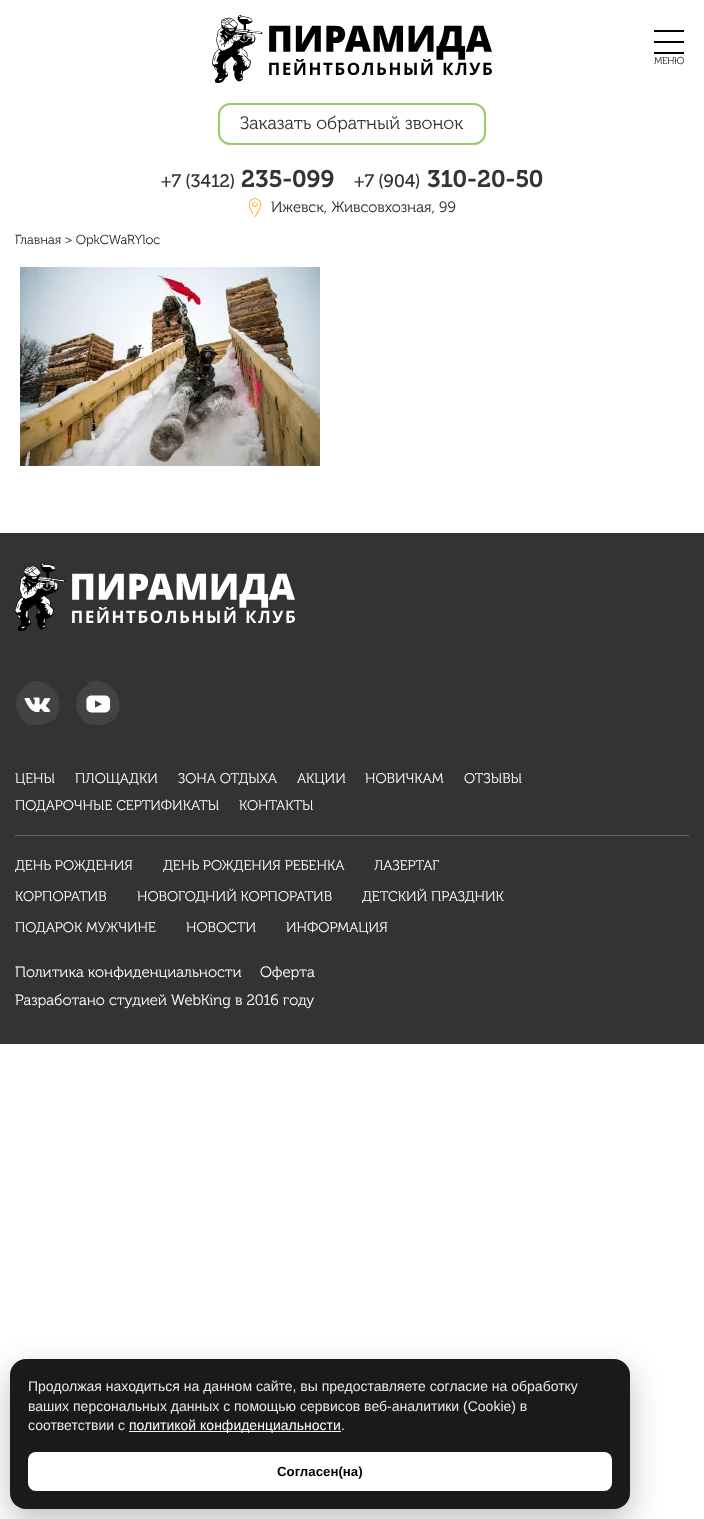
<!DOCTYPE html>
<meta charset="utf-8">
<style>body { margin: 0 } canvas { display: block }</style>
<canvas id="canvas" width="704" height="1519"></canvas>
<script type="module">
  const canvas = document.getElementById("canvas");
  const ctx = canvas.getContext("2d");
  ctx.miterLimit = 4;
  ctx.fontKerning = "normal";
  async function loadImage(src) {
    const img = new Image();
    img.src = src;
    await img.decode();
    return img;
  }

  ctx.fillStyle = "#ffffff";
  ctx.fillRect(0, 0, 704, 1519);
  ctx.drawImage(await loadImage("img1.png"), 212, 15, 280, 68);
  ctx.fillStyle = "#000000";
  ctx.fillRect(654, 30, 30, 2);
  ctx.fillRect(654, 52, 30, 2);
  ctx.fillRect(654, 41, 30, 2);
  ctx.letterSpacing = "-0.5px";
  ctx.font = "300 10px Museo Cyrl";
  ctx.fillStyle = "#242628";
  ctx.fillText("МЕНЮ", 654, 64);
  ctx.beginPath();
  ctx.roundRect(219, 104, 266, 40, 11);
  ctx.strokeStyle = "#99cc66";
  ctx.lineWidth = 2;
  ctx.stroke();
  ctx.letterSpacing = "0px";
  ctx.font = "300 18px Museo Cyrl";
  ctx.fillStyle = "#333333";
  ctx.fillText("Заказать обратный звонок", 240, 129);
  ctx.font = "18px Museo Cyrl";
  ctx.fillText("+7 (3412)", 161, 187);
  ctx.font = "600 24px Museo Cyrl";
  ctx.fillText("235-099", 241, 187);
  ctx.font = "18px Museo Cyrl";
  ctx.fillText("+7 (904)", 354, 187);
  ctx.font = "600 24px Museo Cyrl";
  ctx.fillText("310-20-50", 427, 187);
  ctx.drawImage(await loadImage("img2.png"), 248, 198, 13, 19);
  ctx.font = "300 15px Museo Cyrl";
  ctx.fillStyle = "#242628";
  ctx.fillText("Ижевск, Живсовхозная, 99", 271, 212);
  ctx.font = "300 13px Museo Cyrl";
  ctx.fillText("Главная > OpkCWaRYloc", 15, 244);
  ctx.drawImage(await loadImage("img3.png"), 20, 267, 300, 199);
  ctx.fillStyle = "#333333";
  ctx.fillRect(0, 533, 704, 511);
  ctx.drawImage(await loadImage("img4.png"), 15, 563, 280, 68);
  ctx.drawImage(await loadImage("img5.png"), 16, 681, 44, 45);
  ctx.drawImage(await loadImage("img6.png"), 76, 681, 44, 45);
  ctx.fillStyle = "#636363";
  ctx.fillRect(15, 835, 674, 1);
  ctx.font = "300 14px Museo Cyrl";
  ctx.fillStyle = "#ffffff";
  ctx.fillText("ЦЕНЫ", 15, 783);
  ctx.fillText("ПЛОЩАДКИ", 75, 783);
  ctx.fillText("ЗОНА ОТДЫХА", 178, 783);
  ctx.fillText("АКЦИИ", 297, 783);
  ctx.fillText("НОВИЧКАМ", 365, 783);
  ctx.fillText("ОТЗЫВЫ", 464, 783);
  ctx.fillText("ПОДАРОЧНЫЕ СЕРТИФИКАТЫ", 15, 810);
  ctx.fillText("КОНТАКТЫ", 239, 810);
  ctx.fillText("ДЕНЬ РОЖДЕНИЯ", 15, 870);
  ctx.fillText("ДЕНЬ РОЖДЕНИЯ РЕБЕНКА", 163, 870);
  ctx.fillText("ЛАЗЕРТАГ", 374, 870);
  ctx.fillText("КОРПОРАТИВ", 15, 901);
  ctx.fillText("НОВОГОДНИЙ КОРПОРАТИВ", 137, 901);
  ctx.fillText("ДЕТСКИЙ ПРАЗДНИК", 362, 901);
  ctx.fillText("ПОДАРОК МУЖЧИНЕ", 15, 932);
  ctx.fillText("НОВОСТИ", 186, 932);
  ctx.fillText("ИНФОРМАЦИЯ", 286, 932);
  ctx.font = "300 15px Museo Cyrl";
  ctx.fillText("Политика конфиденциальности", 15, 977);
  ctx.fillText("Оферта", 260, 977);
  ctx.fillText("Разработано студией WebKing в 2016 году", 15, 1005);
  ctx.fillStyle = "rgba(0, 0, 0, 0.25)";
  ctx.filter = "blur(16px)";
  ctx.beginPath();
  ctx.roundRect(10, 1371, 620, 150, 16);
  ctx.fill();
  ctx.filter = "none";
  ctx.fillStyle = "#1a1a1a";
  ctx.beginPath();
  ctx.roundRect(10, 1359, 620, 150, 16);
  ctx.fill();
  ctx.font = "14px Liberation Sans";
  ctx.fillStyle = "#e8e8e8";
  ctx.fillText("Продолжая находиться на данном сайте, вы предоставляете согласие на обработку", 28, 1391);
  ctx.fillText("ваших персональных данных с помощью сервисов веб-аналитики (Cookie) в", 28, 1411);
  ctx.fillText("соответствии с", 28, 1430);
  ctx.fillStyle = "#ffffff";
  ctx.fillRect(129, 1431, 212, 1);
  ctx.fillText("политикой конфиденциальности", 129, 1430);
  ctx.fillStyle = "#e8e8e8";
  ctx.fillText(".", 341, 1430);
  ctx.fillStyle = "#ffffff";
  ctx.beginPath();
  ctx.roundRect(28, 1452, 584, 39, 8);
  ctx.fill();
  ctx.font = "bold 13.25px Liberation Sans";
  ctx.fillStyle = "#000000";
  ctx.fillText("Согласен(на)", 277, 1476);
</script>
